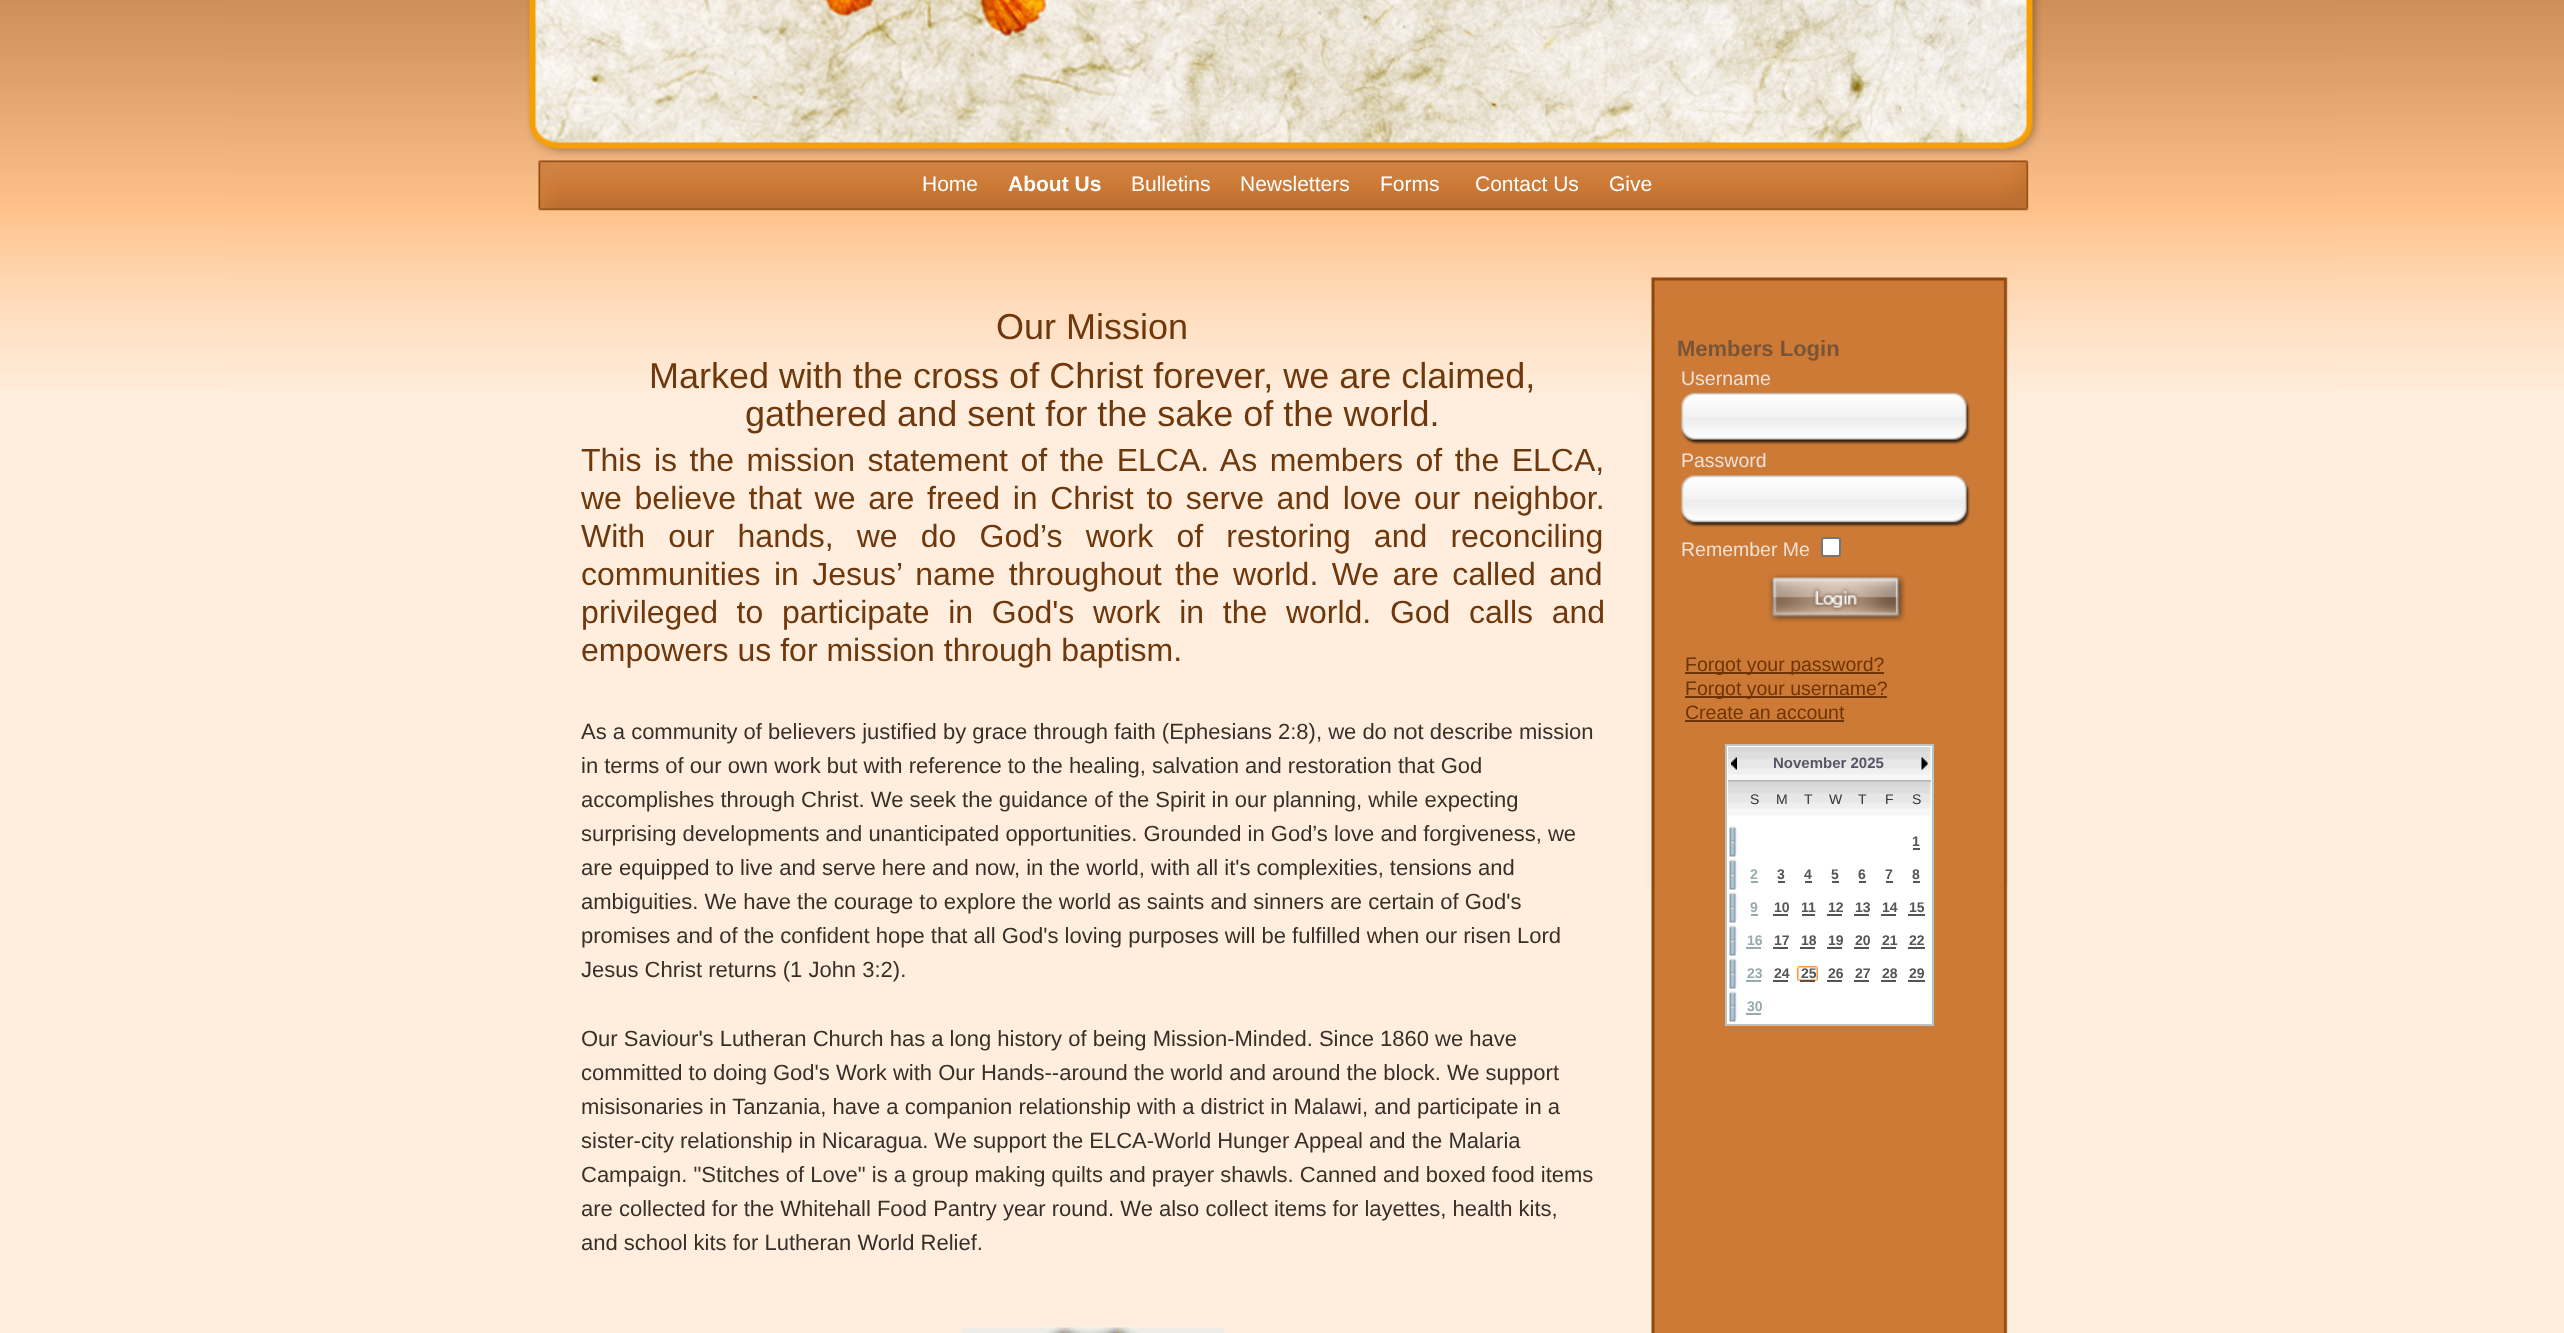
<!DOCTYPE html>
<meta charset="utf-8">
<style>body { margin: 0 } canvas { display: block }</style>
<canvas id="canvas" width="2564" height="1333"></canvas>
<script type="module">
  const canvas = document.getElementById("canvas");
  const ctx = canvas.getContext("2d");
  ctx.miterLimit = 4;
  ctx.fontKerning = "normal";
  async function loadImage(src) {
    const img = new Image();
    img.src = src;
    await img.decode();
    return img;
  }

  ctx.fillStyle = "#ffeddd";
  ctx.fillRect(0, 0, 2564, 1333);
  ctx.drawImage(await loadImage("img1.png"), 0, 0, 2564, 389);
  ctx.drawImage(await loadImage("img2.png"), 228, 885, 2109, 448);
  ctx.drawImage(await loadImage("img3.png"), 228, 0, 2109, 885);
  ctx.font = "21px Liberation Sans";
  ctx.fillStyle = "#ffffff";
  ctx.fillText("Home", 922, 191);
  ctx.font = "bold 21px Liberation Sans";
  ctx.fillText("About Us", 1008, 191);
  ctx.font = "21px Liberation Sans";
  ctx.fillText("Bulletins", 1131, 191);
  ctx.fillText("Newsletters", 1240, 191);
  ctx.fillText("Forms", 1380, 191);
  ctx.fillText("Contact Us", 1475, 191);
  ctx.fillText("Give", 1609, 191);
  ctx.font = "36px Liberation Sans";
  ctx.fillStyle = "#6f380c";
  ctx.fillText("Our Mission", 996, 339);
  ctx.fillText("Marked with the cross of Christ forever, we are claimed,", 649, 388);
  ctx.fillText("gathered and sent for the sake of the world.", 745, 426);
  ctx.wordSpacing = "3.6px";
  ctx.font = "32px Liberation Sans";
  ctx.fillText("This is the mission statement of the ELCA. As members of the ELCA,", 581, 471);
  ctx.wordSpacing = "3.75px";
  ctx.fillText("we believe that we are freed in Christ to serve and love our neighbor.", 581, 509);
  ctx.wordSpacing = "14.25px";
  ctx.fillText("With our hands, we do God’s work of restoring and reconciling", 581, 547);
  ctx.wordSpacing = "4.5px";
  ctx.fillText("communities in Jesus’ name throughout the world. We are called and", 581, 585);
  ctx.wordSpacing = "9.75px";
  ctx.fillText("privileged to participate in God's work in the world. God calls and", 581, 623);
  ctx.wordSpacing = "0px";
  ctx.fillText("empowers us for mission through baptism.", 581, 661);
  ctx.font = "22px Liberation Sans";
  ctx.fillStyle = "#372f28";
  ctx.fillText("As a community of believers justified by grace through faith (Ephesians 2:8), we do not describe mission", 581, 739);
  ctx.fillText("in terms of our own work but with reference to the healing, salvation and restoration that God", 581, 773);
  ctx.fillText("accomplishes through Christ. We seek the guidance of the Spirit in our planning, while expecting", 581, 807);
  ctx.fillText("surprising developments and unanticipated opportunities. Grounded in God’s love and forgiveness, we", 581, 841);
  ctx.fillText("are equipped to live and serve here and now, in the world, with all it's complexities, tensions and", 581, 875);
  ctx.fillText("ambiguities. We have the courage to explore the world as saints and sinners are certain of God's", 581, 909);
  ctx.fillText("promises and of the confident hope that all God's loving purposes will be fulfilled when our risen Lord", 581, 943);
  ctx.fillText("Jesus Christ returns (1 John 3:2).", 581, 977);
  ctx.fillText("Our Saviour's Lutheran Church has a long history of being Mission-Minded. Since 1860 we have", 581, 1046);
  ctx.fillText("committed to doing God's Work with Our Hands--around the world and around the block. We support", 581, 1080);
  ctx.fillText("misisonaries in Tanzania, have a companion relationship with a district in Malawi, and participate in a", 581, 1114);
  ctx.fillText("sister-city relationship in Nicaragua. We support the ELCA-World Hunger Appeal and the Malaria", 581, 1148);
  ctx.fillText("Campaign. \"Stitches of Love\" is a group making quilts and prayer shawls. Canned and boxed food items", 581, 1182);
  ctx.fillText("are collected for the Whitehall Food Pantry year round. We also collect items for layettes, health kits,", 581, 1216);
  ctx.fillText("and school kits for Lutheran World Relief.", 581, 1250);
  ctx.drawImage(await loadImage("img4.png"), 961, 1327, 263, 6);
  ctx.font = "bold 22px Liberation Sans";
  ctx.fillStyle = "#795537";
  ctx.fillText("Members Login", 1677, 356);
  ctx.font = "19.5px Liberation Sans";
  ctx.fillStyle = "#efe1d5";
  ctx.fillText("Username", 1681, 385);
  ctx.drawImage(await loadImage("img5.png"), 1681, 392, 289, 53);
  ctx.fillText("Password", 1681, 467);
  ctx.drawImage(await loadImage("img6.png"), 1681, 475, 289, 52);
  ctx.fillText("Remember Me", 1681, 556);
  ctx.fillStyle = "#ffffff";
  ctx.beginPath();
  ctx.roundRect(1822, 538, 18, 18, 2);
  ctx.fill();
  ctx.strokeStyle = "#767676";
  ctx.lineWidth = 2;
  ctx.stroke();
  ctx.drawImage(await loadImage("img7.png"), 1768, 574, 138, 49);
  ctx.fillStyle = "#6f3403";
  ctx.fillRect(1685, 672, 199, 2);
  ctx.fillText("Forgot your password?", 1685, 671);
  ctx.fillRect(1685, 696, 202, 2);
  ctx.fillText("Forgot your username?", 1685, 695);
  ctx.fillText("Create an account", 1685, 719);
  ctx.fillRect(1685, 720, 159, 2);
  ctx.fillStyle = "#ffffff";
  ctx.beginPath();
  ctx.rect(1726, 745, 207, 280);
  ctx.fill();
  ctx.strokeStyle = "#bec2c3";
  ctx.stroke();
  ctx.drawImage(await loadImage("img8.png"), 1728, 747, 203, 33);
  ctx.fillStyle = "#b4b4b6";
  ctx.fillRect(1728, 780, 203, 2);
  ctx.drawImage(await loadImage("img9.png"), 1731, 757, 6, 13);
  ctx.font = "bold 15px Liberation Sans";
  ctx.fillStyle = "#565666";
  ctx.fillText("November 2025", 1773, 768);
  ctx.drawImage(await loadImage("img10.png"), 1921, 757, 7, 13);
  ctx.drawImage(await loadImage("img11.png"), 1728, 781, 203, 35);
  ctx.font = "14px Liberation Sans";
  ctx.fillStyle = "#333333";
  ctx.fillText("S", 1750, 804);
  ctx.fillText("M", 1776, 804);
  ctx.fillText("T", 1804, 804);
  ctx.fillText("W", 1829, 804);
  ctx.fillText("T", 1858, 804);
  ctx.fillText("F", 1885, 804);
  ctx.fillText("S", 1912, 804);
  ctx.drawImage(await loadImage("img12.png"), 1729, 826, 8, 31);
  ctx.font = "bold 14px Liberation Sans";
  ctx.fillStyle = "#555555";
  ctx.fillText("1", 1912, 846);
  ctx.fillRect(1913, 848, 7, 2);
  ctx.drawImage(await loadImage("img12.png"), 1729, 859, 8, 31);
  ctx.fillStyle = "#99aaaa";
  ctx.fillText("2", 1750, 879);
  ctx.fillRect(1751, 881, 7, 2);
  ctx.fillStyle = "#555555";
  ctx.fillText("3", 1777, 879);
  ctx.fillRect(1778, 881, 7, 2);
  ctx.fillText("4", 1804, 879);
  ctx.fillRect(1805, 881, 7, 2);
  ctx.fillText("5", 1831, 879);
  ctx.fillRect(1832, 881, 7, 2);
  ctx.fillText("6", 1858, 879);
  ctx.fillRect(1859, 881, 7, 2);
  ctx.fillText("7", 1885, 879);
  ctx.fillRect(1886, 881, 7, 2);
  ctx.fillText("8", 1912, 879);
  ctx.fillRect(1913, 881, 7, 2);
  ctx.drawImage(await loadImage("img12.png"), 1729, 892, 8, 31);
  ctx.fillStyle = "#99aaaa";
  ctx.fillText("9", 1750, 912);
  ctx.fillRect(1751, 914, 7, 2);
  ctx.fillStyle = "#555555";
  ctx.fillText("10", 1774, 912);
  ctx.fillRect(1773, 914, 15, 2);
  ctx.fillText("11", 1801, 912);
  ctx.fillRect(1802, 914, 13, 2);
  ctx.fillText("12", 1828, 912);
  ctx.fillRect(1827, 914, 15, 2);
  ctx.fillText("13", 1855, 912);
  ctx.fillRect(1854, 914, 15, 2);
  ctx.fillText("14", 1882, 912);
  ctx.fillRect(1881, 914, 15, 2);
  ctx.fillText("15", 1909, 912);
  ctx.fillRect(1908, 914, 17, 2);
  ctx.drawImage(await loadImage("img12.png"), 1729, 925, 8, 31);
  ctx.fillStyle = "#99aaaa";
  ctx.fillText("16", 1747, 945);
  ctx.fillRect(1746, 947, 15, 2);
  ctx.fillStyle = "#555555";
  ctx.fillText("17", 1774, 945);
  ctx.fillRect(1773, 947, 15, 2);
  ctx.fillText("18", 1801, 945);
  ctx.fillRect(1800, 947, 15, 2);
  ctx.fillText("19", 1828, 945);
  ctx.fillRect(1827, 947, 15, 2);
  ctx.fillText("20", 1855, 945);
  ctx.fillRect(1854, 947, 15, 2);
  ctx.fillText("21", 1882, 945);
  ctx.fillRect(1881, 947, 15, 2);
  ctx.fillText("22", 1909, 945);
  ctx.fillRect(1908, 947, 17, 2);
  ctx.drawImage(await loadImage("img12.png"), 1729, 958, 8, 31);
  ctx.fillStyle = "#99aaaa";
  ctx.fillText("23", 1747, 978);
  ctx.fillRect(1746, 980, 15, 2);
  ctx.fillStyle = "#555555";
  ctx.fillText("24", 1774, 978);
  ctx.fillRect(1773, 980, 15, 2);
  ctx.drawImage(await loadImage("img13.png"), 1797, 966, 21, 15);
  ctx.fillText("25", 1801, 978);
  ctx.fillRect(1800, 980, 15, 2);
  ctx.fillText("26", 1828, 978);
  ctx.fillRect(1827, 980, 15, 2);
  ctx.fillText("27", 1855, 978);
  ctx.fillRect(1854, 980, 15, 2);
  ctx.fillText("28", 1882, 978);
  ctx.fillRect(1881, 980, 15, 2);
  ctx.fillText("29", 1909, 978);
  ctx.fillRect(1908, 980, 17, 2);
  ctx.drawImage(await loadImage("img12.png"), 1729, 991, 8, 31);
  ctx.fillStyle = "#99aaaa";
  ctx.fillText("30", 1747, 1011);
  ctx.fillRect(1746, 1013, 15, 2);
</script>
